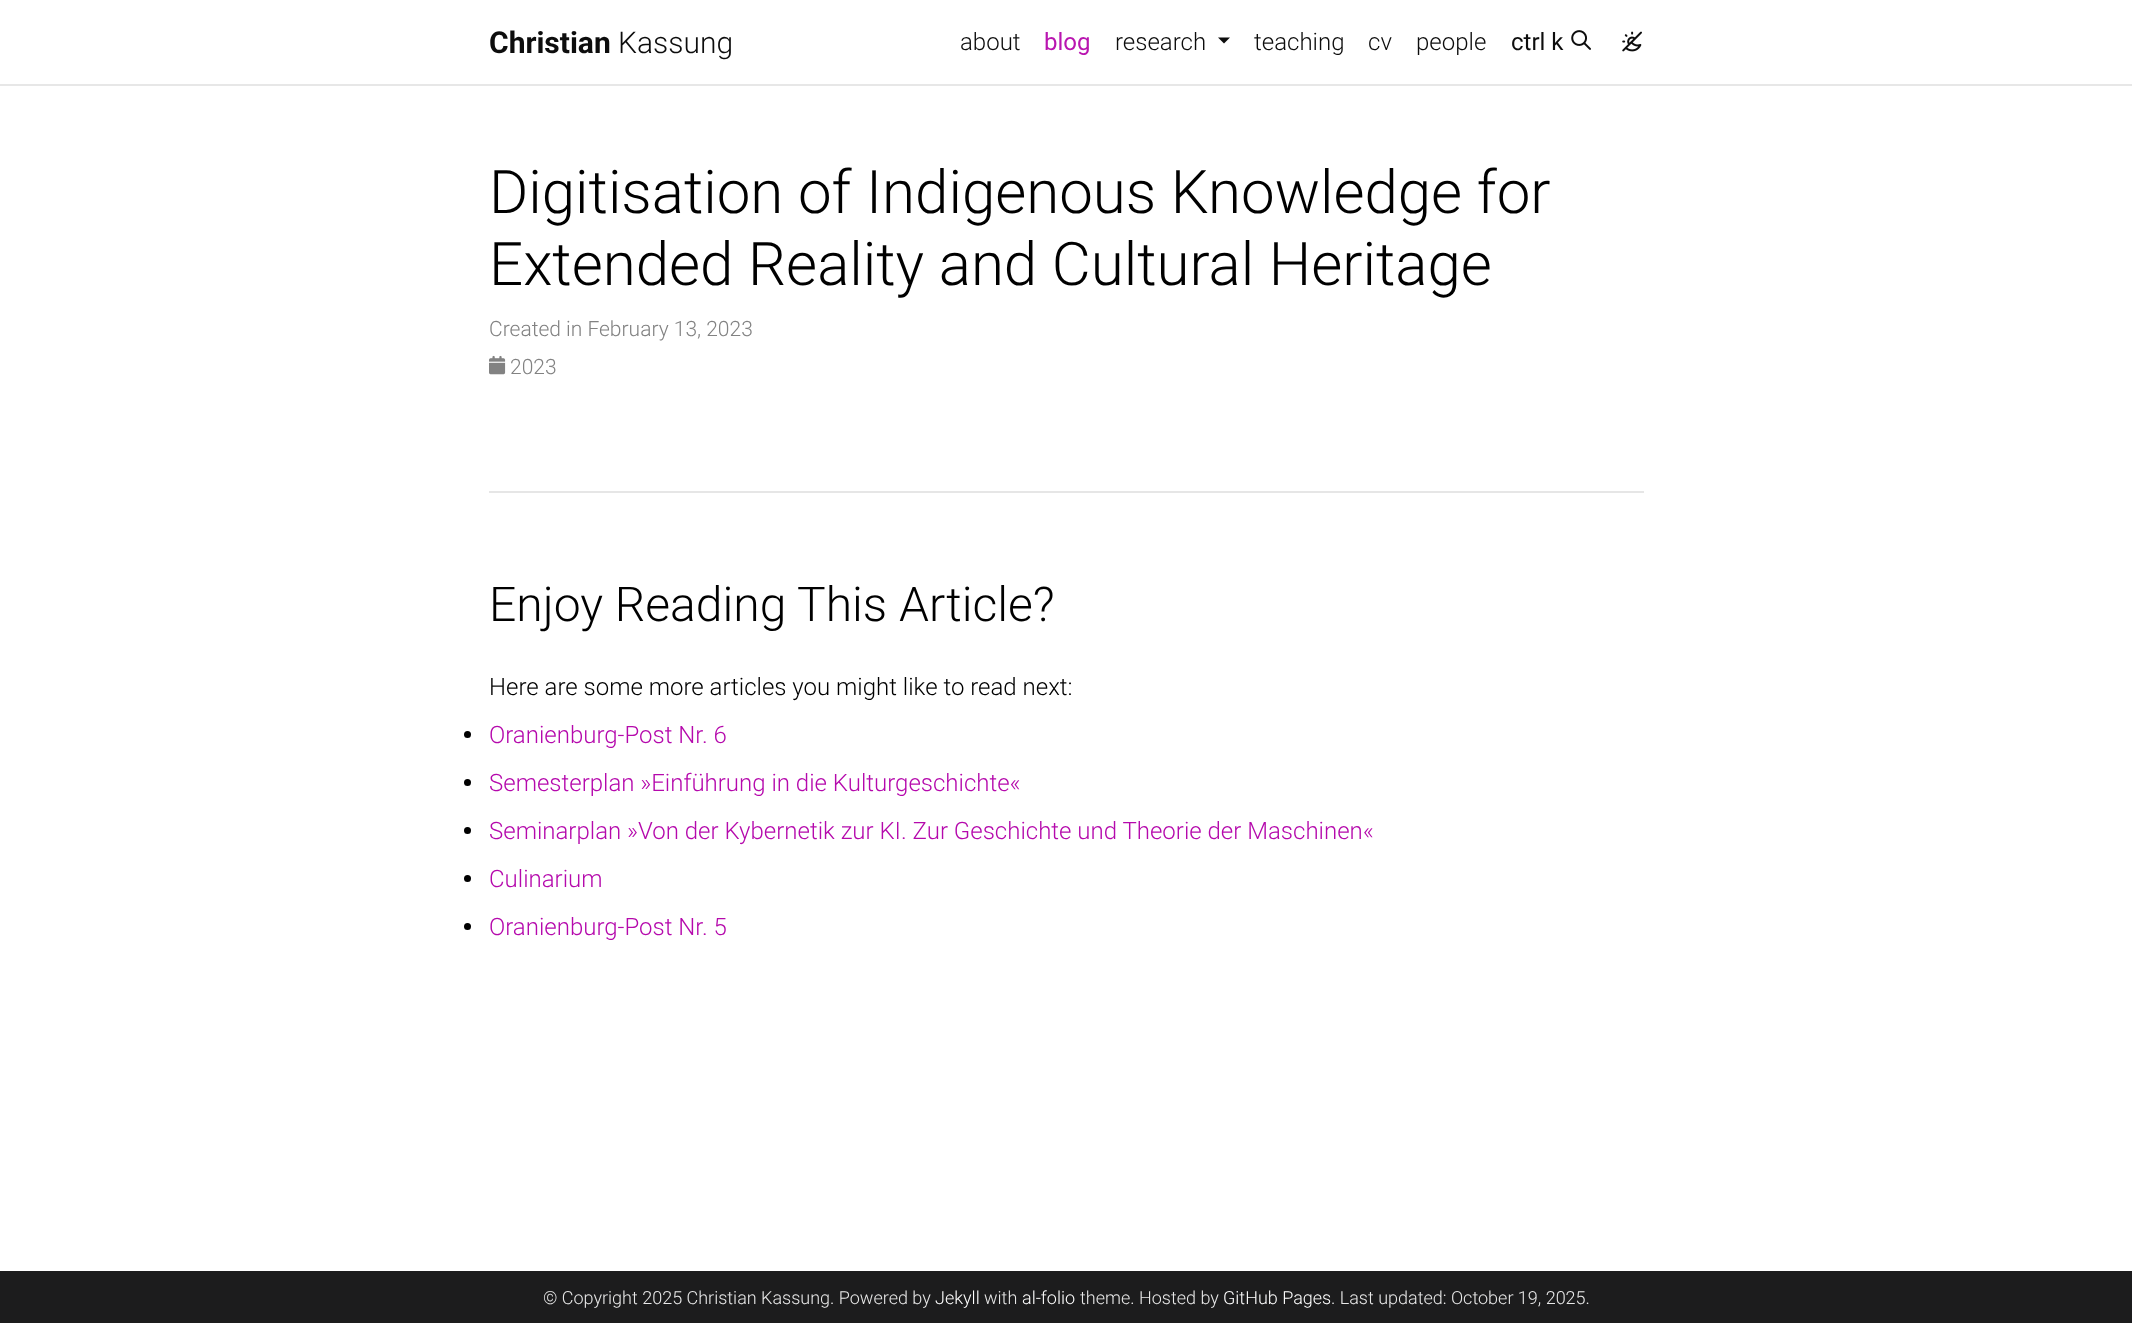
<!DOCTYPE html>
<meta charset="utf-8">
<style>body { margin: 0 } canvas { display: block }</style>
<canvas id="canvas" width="2132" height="1323"></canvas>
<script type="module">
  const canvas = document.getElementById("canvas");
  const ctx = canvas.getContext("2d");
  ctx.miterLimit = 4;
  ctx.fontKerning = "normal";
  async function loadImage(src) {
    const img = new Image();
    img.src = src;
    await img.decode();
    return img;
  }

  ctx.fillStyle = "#ffffff";
  ctx.fillRect(0, 0, 2132, 1323);
  ctx.fillStyle = "#e7e7e7";
  ctx.fillRect(0, 84, 2132, 2);
  ctx.font = "bold 30px Roboto";
  ctx.fillStyle = "#0d0d0d";
  ctx.fillText("Christian", 489, 53);
  ctx.font = "300 30px Roboto";
  ctx.fillText("Kassung", 618, 53);
  ctx.font = "300 24px Roboto";
  ctx.fillText("about", 960, 50);
  ctx.font = "24px Roboto";
  ctx.fillStyle = "#b915b0";
  ctx.fillText("blog", 1044, 50);
  ctx.font = "300 24px Roboto";
  ctx.fillStyle = "#0d0d0d";
  ctx.fillText("research", 1115, 50);
  ctx.beginPath();
  ctx.moveTo(1218, 37.5);
  ctx.lineTo(1230, 37.5);
  ctx.lineTo(1224, 43.5);
  ctx.closePath();
  ctx.fill();
  ctx.fillText("teaching", 1254, 50);
  ctx.fillText("cv", 1368, 50);
  ctx.fillText("people", 1416, 50);
  ctx.font = "24px Roboto";
  ctx.fillText("ctrl k", 1511, 50);
  ctx.drawImage(await loadImage("img1.png"), 1571, 30, 20, 20);
  ctx.drawImage(await loadImage("img2.png"), 1622, 31, 20, 21);
  ctx.font = "300 60px Roboto";
  ctx.fillStyle = "#000000";
  ctx.fillText("Digitisation of Indigenous Knowledge for", 489, 213);
  ctx.fillText("Extended Reality and Cultural Heritage", 489, 285);
  ctx.font = "300 21px Roboto";
  ctx.fillStyle = "#828282";
  ctx.fillText("Created in February 13, 2023", 489, 336);
  ctx.drawImage(await loadImage("img3.png"), 489, 355, 17, 20);
  ctx.fillText("2023", 510, 374);
  ctx.fillStyle = "#e6e6e6";
  ctx.fillRect(489, 491, 1155, 2);
  ctx.font = "300 48px Roboto";
  ctx.fillStyle = "#000000";
  ctx.fillText("Enjoy Reading This Article?", 489, 621);
  ctx.font = "300 24px Roboto";
  ctx.fillText("Here are some more articles you might like to read next:", 489, 695);
  ctx.beginPath();
  ctx.arc(467.5, 734.5, 3.5, 0, Math.PI * 2);
  ctx.fill();
  ctx.fillStyle = "#b509ac";
  ctx.fillText("Oranienburg-Post Nr. 6", 489, 743);
  ctx.fillStyle = "#000000";
  ctx.beginPath();
  ctx.arc(467.5, 782.5, 3.5, 0, Math.PI * 2);
  ctx.fill();
  ctx.fillStyle = "#b509ac";
  ctx.fillText("Semesterplan »Einführung in die Kulturgeschichte«", 489, 791);
  ctx.fillStyle = "#000000";
  ctx.beginPath();
  ctx.arc(467.5, 830.5, 3.5, 0, Math.PI * 2);
  ctx.fill();
  ctx.fillStyle = "#b509ac";
  ctx.fillText("Seminarplan »Von der Kybernetik zur KI. Zur Geschichte und Theorie der Maschinen«", 489, 839);
  ctx.fillStyle = "#000000";
  ctx.beginPath();
  ctx.arc(467.5, 878.5, 3.5, 0, Math.PI * 2);
  ctx.fill();
  ctx.fillStyle = "#b509ac";
  ctx.fillText("Culinarium", 489, 887);
  ctx.fillStyle = "#000000";
  ctx.beginPath();
  ctx.arc(467.5, 926.5, 3.5, 0, Math.PI * 2);
  ctx.fill();
  ctx.fillStyle = "#b509ac";
  ctx.fillText("Oranienburg-Post Nr. 5", 489, 935);
  ctx.fillStyle = "#1c1c1d";
  ctx.fillRect(0, 1271, 2132, 52);
  ctx.font = "300 18px Roboto";
  ctx.fillStyle = "#e8e8e8";
  ctx.fillText("© Copyright 2025 Christian Kassung. Powered by", 543, 1304);
  ctx.fillStyle = "#ffffff";
  ctx.fillText("Jekyll", 935, 1304);
  ctx.fillStyle = "#e8e8e8";
  ctx.fillText("with", 984, 1304);
  ctx.fillStyle = "#ffffff";
  ctx.fillText("al-folio", 1022, 1304);
  ctx.fillStyle = "#e8e8e8";
  ctx.fillText("theme. Hosted by", 1080, 1304);
  ctx.fillStyle = "#ffffff";
  ctx.fillText("GitHub Pages", 1223, 1304);
  ctx.fillStyle = "#e8e8e8";
  ctx.fillText(". Last updated: October 19, 2025.", 1331, 1304);
</script>
